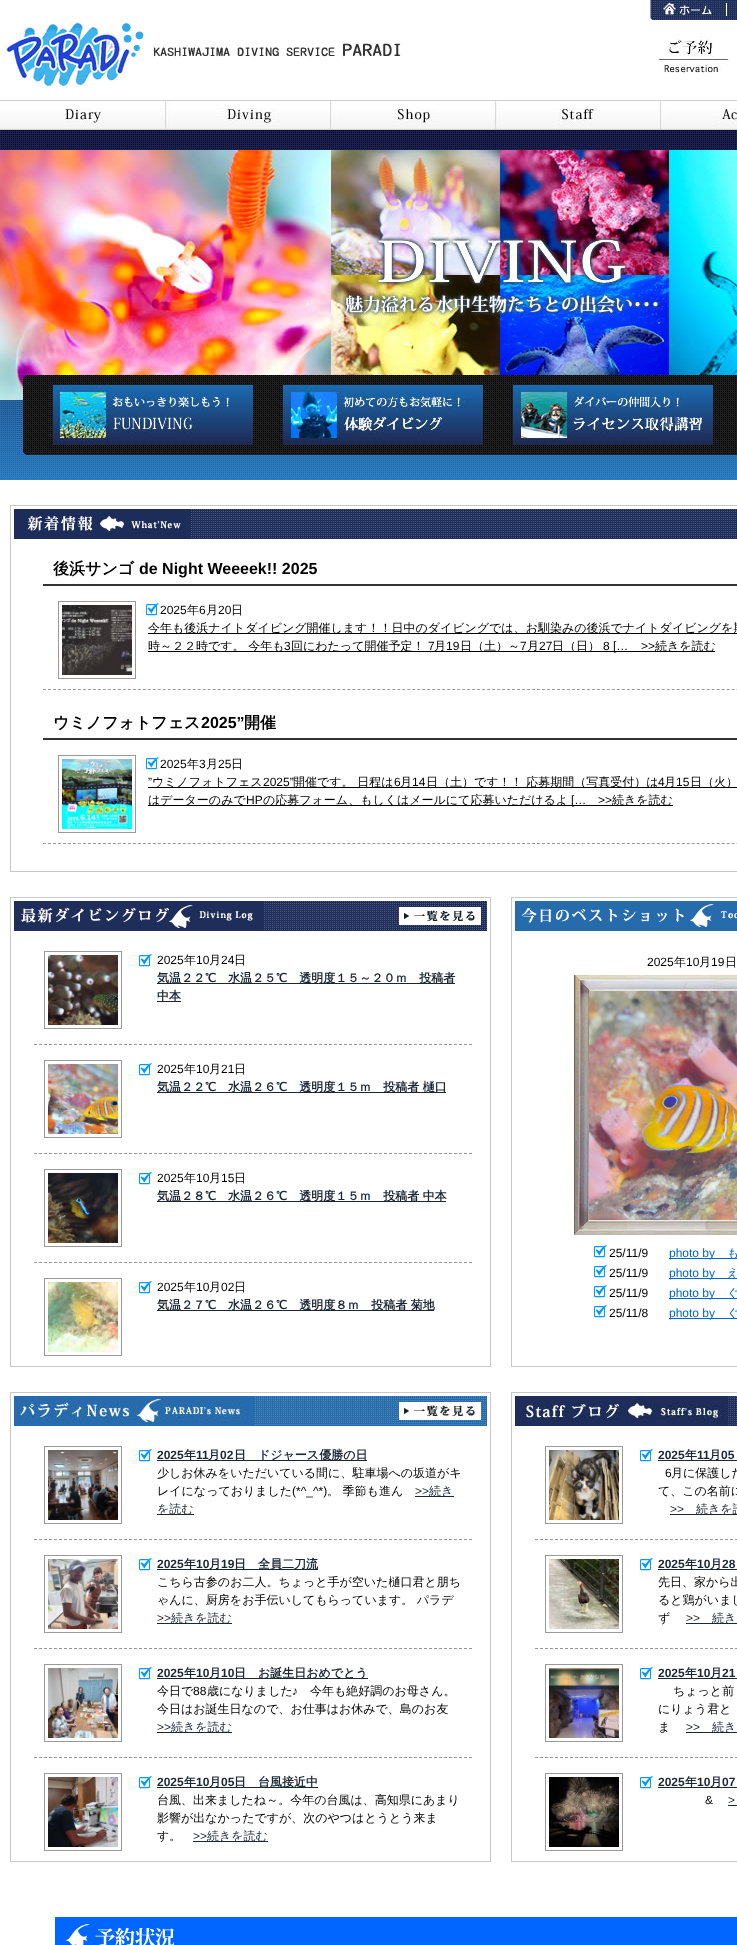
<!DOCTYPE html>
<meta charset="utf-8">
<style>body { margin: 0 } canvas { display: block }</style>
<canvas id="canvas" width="737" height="1945"></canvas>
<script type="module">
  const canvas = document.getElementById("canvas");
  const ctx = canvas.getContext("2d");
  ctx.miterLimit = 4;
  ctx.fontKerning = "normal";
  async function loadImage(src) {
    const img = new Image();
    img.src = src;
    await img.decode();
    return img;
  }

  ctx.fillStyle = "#ffffff";
  ctx.fillRect(0, 0, 737, 1945);
  ctx.drawImage(await loadImage("img1.png"), 6, 22, 395, 64);
  ctx.drawImage(await loadImage("img2.png"), 650, 0, 77, 20);
  ctx.drawImage(await loadImage("img3.png"), 727, 0, 10, 20);
  ctx.drawImage(await loadImage("img4.png"), 658, 33, 71, 40);
  ctx.drawImage(await loadImage("img5.png"), 0, 100, 737, 30);
  ctx.drawImage(await loadImage("img6.png"), 64, 108, 40, 16);
  ctx.drawImage(await loadImage("img7.png"), 165, 100, 112, 29);
  ctx.drawImage(await loadImage("img8.png"), 330, 100, 104, 29);
  ctx.drawImage(await loadImage("img9.png"), 495, 100, 104, 29);
  ctx.drawImage(await loadImage("img10.png"), 660, 100, 77, 29);
  ctx.drawImage(await loadImage("img11.png"), 0, 130, 737, 350);
  ctx.drawImage(await loadImage("img12.png"), 0, 150, 737, 250);
  ctx.drawImage(await loadImage("img13.png"), 23, 375, 714, 80);
  ctx.drawImage(await loadImage("img14.png"), 53, 385, 200, 60);
  ctx.drawImage(await loadImage("img15.png"), 283, 385, 200, 60);
  ctx.drawImage(await loadImage("img16.png"), 513, 385, 200, 60);
  ctx.strokeStyle = "#c8c8c8";
  ctx.strokeRect(10.5, 505.5, 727, 366);
  ctx.drawImage(await loadImage("img17.png"), 14, 509, 723, 30);
  ctx.fillStyle = "#333333";
  ctx.fillRect(43, 584, 694, 2);
  ctx.font = "bold 16px WenQuanYi Zen Hei";
  ctx.fillStyle = "#000000";
  ctx.fillText("後浜サンゴ", 53, 574);
  ctx.font = "bold 16px Liberation Sans";
  ctx.fillText("de Night Weeeek!! 2025", 139, 574);
  ctx.drawImage(await loadImage("img18.png"), 141, 599, 24, 22);
  ctx.beginPath();
  ctx.moveTo(43, 689.5);
  ctx.lineTo(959, 689.5);
  ctx.strokeStyle = "#999999";
  ctx.setLineDash([3, 1.99]);
  ctx.stroke();
  ctx.setLineDash([]);
  ctx.strokeRect(58.5, 601.5, 77, 77);
  ctx.drawImage(await loadImage("img19.png"), 62, 605, 70, 70);
  ctx.font = "12px Liberation Sans";
  ctx.fillText("2025", 160, 614);
  ctx.font = "500 12px WenQuanYi Zen Hei";
  ctx.fillText("年", 187, 614);
  ctx.font = "12px Liberation Sans";
  ctx.fillText("6", 199, 614);
  ctx.font = "500 12px WenQuanYi Zen Hei";
  ctx.fillText("月", 206, 614);
  ctx.font = "12px Liberation Sans";
  ctx.fillText("20", 218, 614);
  ctx.font = "500 12px WenQuanYi Zen Hei";
  ctx.fillText("日", 231, 614);
  ctx.fillRect(148, 633, 589, 1);
  ctx.fillText("今年も後浜ナイトダイビング開催します！！日中のダイビングでは、お馴染みの後浜でナイトダイビングを期", 148, 632);
  ctx.fillRect(148, 651, 567, 1);
  ctx.fillText("時～２２時です。 今年も", 148, 650);
  ctx.font = "12px Liberation Sans";
  ctx.fillText("3", 284, 650);
  ctx.font = "500 12px WenQuanYi Zen Hei";
  ctx.fillText("回にわたって開催予定！", 291, 650);
  ctx.font = "12px Liberation Sans";
  ctx.fillText("7", 428, 650);
  ctx.font = "500 12px WenQuanYi Zen Hei";
  ctx.fillText("月", 434, 650);
  ctx.font = "12px Liberation Sans";
  ctx.fillText("19", 446, 650);
  ctx.font = "500 12px WenQuanYi Zen Hei";
  ctx.fillText("日（土）～", 460, 650);
  ctx.font = "12px Liberation Sans";
  ctx.fillText("7", 520, 650);
  ctx.font = "500 12px WenQuanYi Zen Hei";
  ctx.fillText("月", 527, 650);
  ctx.font = "12px Liberation Sans";
  ctx.fillText("27", 539, 650);
  ctx.font = "500 12px WenQuanYi Zen Hei";
  ctx.fillText("日（日）", 552, 650);
  ctx.font = "12px Liberation Sans";
  ctx.fillText("8 […", 603, 650);
  ctx.fillText(">>", 641, 650);
  ctx.font = "500 12px WenQuanYi Zen Hei";
  ctx.fillText("続きを読む", 655, 650);
  ctx.fillStyle = "#333333";
  ctx.fillRect(43, 738, 694, 2);
  ctx.font = "bold 16px WenQuanYi Zen Hei";
  ctx.fillStyle = "#000000";
  ctx.fillText("ウミノフォトフェス", 53, 728);
  ctx.font = "bold 16px Liberation Sans";
  ctx.fillText("2025”", 201, 728);
  ctx.font = "bold 16px WenQuanYi Zen Hei";
  ctx.fillText("開催", 244, 728);
  ctx.drawImage(await loadImage("img18.png"), 141, 753, 24, 22);
  ctx.beginPath();
  ctx.moveTo(43, 843.5);
  ctx.lineTo(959, 843.5);
  ctx.setLineDash([3, 1.99]);
  ctx.stroke();
  ctx.setLineDash([]);
  ctx.strokeRect(58.5, 755.5, 77, 77);
  ctx.drawImage(await loadImage("img20.png"), 62, 759, 70, 70);
  ctx.font = "12px Liberation Sans";
  ctx.fillText("2025", 160, 768);
  ctx.font = "500 12px WenQuanYi Zen Hei";
  ctx.fillText("年", 187, 768);
  ctx.font = "12px Liberation Sans";
  ctx.fillText("3", 199, 768);
  ctx.font = "500 12px WenQuanYi Zen Hei";
  ctx.fillText("月", 206, 768);
  ctx.font = "12px Liberation Sans";
  ctx.fillText("25", 218, 768);
  ctx.font = "500 12px WenQuanYi Zen Hei";
  ctx.fillText("日", 231, 768);
  ctx.font = "12px Liberation Sans";
  ctx.fillText("”", 148, 786);
  ctx.fillRect(148, 787, 589, 1);
  ctx.font = "500 12px WenQuanYi Zen Hei";
  ctx.fillText("ウミノフォトフェス", 152, 786);
  ctx.font = "12px Liberation Sans";
  ctx.fillText("2025”", 263, 786);
  ctx.font = "500 12px WenQuanYi Zen Hei";
  ctx.fillText("開催です。 日程は", 293, 786);
  ctx.font = "12px Liberation Sans";
  ctx.fillText("6", 394, 786);
  ctx.font = "500 12px WenQuanYi Zen Hei";
  ctx.fillText("月", 400, 786);
  ctx.font = "12px Liberation Sans";
  ctx.fillText("14", 412, 786);
  ctx.font = "500 12px WenQuanYi Zen Hei";
  ctx.fillText("日（土）です！！ 応募期間（写真受付）は", 426, 786);
  ctx.font = "12px Liberation Sans";
  ctx.fillText("4", 658, 786);
  ctx.font = "500 12px WenQuanYi Zen Hei";
  ctx.fillText("月", 664, 786);
  ctx.font = "12px Liberation Sans";
  ctx.fillText("15", 676, 786);
  ctx.font = "500 12px WenQuanYi Zen Hei";
  ctx.fillText("日（火）", 690, 786);
  ctx.fillRect(148, 805, 525, 1);
  ctx.fillText("はデーターのみで", 148, 804);
  ctx.font = "12px Liberation Sans";
  ctx.fillText("HP", 246, 804);
  ctx.font = "500 12px WenQuanYi Zen Hei";
  ctx.fillText("の応募フォーム、もしくはメールにて応募いただけるよ", 263, 804);
  ctx.font = "12px Liberation Sans";
  ctx.fillText("[…", 571, 804);
  ctx.fillText(">>", 598, 804);
  ctx.font = "500 12px WenQuanYi Zen Hei";
  ctx.fillText("続きを読む", 612, 804);
  ctx.strokeStyle = "#c8c8c8";
  ctx.strokeRect(10.5, 897.5, 480, 469);
  ctx.drawImage(await loadImage("img21.png"), 14, 901, 473, 30);
  ctx.drawImage(await loadImage("img22.png"), 139, 954, 13, 13);
  ctx.beginPath();
  ctx.moveTo(34, 1044.5);
  ctx.lineTo(472, 1044.5);
  ctx.strokeStyle = "#999999";
  ctx.setLineDash([3, 2]);
  ctx.stroke();
  ctx.setLineDash([]);
  ctx.strokeRect(44.5, 951.5, 77, 77);
  ctx.drawImage(await loadImage("img23.png"), 48, 955, 70, 70);
  ctx.font = "12px Liberation Sans";
  ctx.fillText("2025", 157, 964);
  ctx.font = "500 12px WenQuanYi Zen Hei";
  ctx.fillText("年", 184, 964);
  ctx.font = "12px Liberation Sans";
  ctx.fillText("10", 196, 964);
  ctx.font = "500 12px WenQuanYi Zen Hei";
  ctx.fillText("月", 209, 964);
  ctx.font = "12px Liberation Sans";
  ctx.fillText("24", 221, 964);
  ctx.font = "500 12px WenQuanYi Zen Hei";
  ctx.fillText("日", 234, 964);
  ctx.fillStyle = "#1b2733";
  ctx.fillRect(157, 983, 298, 1);
  ctx.font = "bold 12px WenQuanYi Zen Hei";
  ctx.fillText("気温２２℃　水温２５℃　透明度１５～２０ｍ　投稿者", 157, 982);
  ctx.fillRect(157, 1001, 24, 1);
  ctx.fillText("中本", 157, 1000);
  ctx.drawImage(await loadImage("img22.png"), 139, 1063, 13, 13);
  ctx.beginPath();
  ctx.moveTo(34, 1153.5);
  ctx.lineTo(472, 1153.5);
  ctx.setLineDash([3, 2]);
  ctx.stroke();
  ctx.setLineDash([]);
  ctx.strokeRect(44.5, 1060.5, 77, 77);
  ctx.drawImage(await loadImage("img24.png"), 48, 1064, 70, 70);
  ctx.font = "12px Liberation Sans";
  ctx.fillStyle = "#000000";
  ctx.fillText("2025", 157, 1073);
  ctx.font = "500 12px WenQuanYi Zen Hei";
  ctx.fillText("年", 184, 1073);
  ctx.font = "12px Liberation Sans";
  ctx.fillText("10", 196, 1073);
  ctx.font = "500 12px WenQuanYi Zen Hei";
  ctx.fillText("月", 209, 1073);
  ctx.font = "12px Liberation Sans";
  ctx.fillText("21", 221, 1073);
  ctx.font = "500 12px WenQuanYi Zen Hei";
  ctx.fillText("日", 234, 1073);
  ctx.fillStyle = "#1b2733";
  ctx.fillRect(157, 1092, 289, 1);
  ctx.font = "bold 12px WenQuanYi Zen Hei";
  ctx.fillText("気温２２℃　水温２６℃　透明度１５ｍ　投稿者 樋口", 157, 1091);
  ctx.drawImage(await loadImage("img22.png"), 139, 1172, 13, 13);
  ctx.beginPath();
  ctx.moveTo(34, 1262.5);
  ctx.lineTo(472, 1262.5);
  ctx.setLineDash([3, 2]);
  ctx.stroke();
  ctx.setLineDash([]);
  ctx.strokeRect(44.5, 1169.5, 77, 77);
  ctx.drawImage(await loadImage("img25.png"), 48, 1173, 70, 70);
  ctx.font = "12px Liberation Sans";
  ctx.fillStyle = "#000000";
  ctx.fillText("2025", 157, 1182);
  ctx.font = "500 12px WenQuanYi Zen Hei";
  ctx.fillText("年", 184, 1182);
  ctx.font = "12px Liberation Sans";
  ctx.fillText("10", 196, 1182);
  ctx.font = "500 12px WenQuanYi Zen Hei";
  ctx.fillText("月", 209, 1182);
  ctx.font = "12px Liberation Sans";
  ctx.fillText("15", 221, 1182);
  ctx.font = "500 12px WenQuanYi Zen Hei";
  ctx.fillText("日", 234, 1182);
  ctx.fillStyle = "#1b2733";
  ctx.fillRect(157, 1201, 289, 1);
  ctx.font = "bold 12px WenQuanYi Zen Hei";
  ctx.fillText("気温２８℃　水温２６℃　透明度１５ｍ　投稿者 中本", 157, 1200);
  ctx.drawImage(await loadImage("img22.png"), 139, 1281, 13, 13);
  ctx.strokeRect(44.5, 1278.5, 77, 77);
  ctx.drawImage(await loadImage("img26.png"), 48, 1282, 70, 70);
  ctx.font = "12px Liberation Sans";
  ctx.fillStyle = "#000000";
  ctx.fillText("2025", 157, 1291);
  ctx.font = "500 12px WenQuanYi Zen Hei";
  ctx.fillText("年", 184, 1291);
  ctx.font = "12px Liberation Sans";
  ctx.fillText("10", 196, 1291);
  ctx.font = "500 12px WenQuanYi Zen Hei";
  ctx.fillText("月", 209, 1291);
  ctx.font = "12px Liberation Sans";
  ctx.fillText("02", 221, 1291);
  ctx.font = "500 12px WenQuanYi Zen Hei";
  ctx.fillText("日", 234, 1291);
  ctx.fillStyle = "#1b2733";
  ctx.fillRect(157, 1310, 277, 1);
  ctx.font = "bold 12px WenQuanYi Zen Hei";
  ctx.fillText("気温２７℃　水温２６℃　透明度８ｍ　投稿者 菊地", 157, 1309);
  ctx.strokeStyle = "#c8c8c8";
  ctx.strokeRect(511.5, 897.5, 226, 469);
  ctx.drawImage(await loadImage("img27.png"), 515, 901, 222, 30);
  ctx.font = "12px Liberation Sans";
  ctx.fillStyle = "#000000";
  ctx.fillText("2025", 647, 966);
  ctx.font = "500 12px WenQuanYi Zen Hei";
  ctx.fillText("年", 674, 966);
  ctx.font = "12px Liberation Sans";
  ctx.fillText("10", 686, 966);
  ctx.font = "500 12px WenQuanYi Zen Hei";
  ctx.fillText("月", 699, 966);
  ctx.font = "12px Liberation Sans";
  ctx.fillText("19", 711, 966);
  ctx.font = "500 12px WenQuanYi Zen Hei";
  ctx.fillText("日", 725, 966);
  ctx.drawImage(await loadImage("img28.png"), 574, 975, 163, 260);
  ctx.drawImage(await loadImage("img29.png"), 589, 991, 148, 229);
  ctx.drawImage(await loadImage("img22.png"), 594, 1245, 13, 13);
  ctx.font = "12px Liberation Sans";
  ctx.fillText("25/11/9", 609, 1257);
  ctx.fillStyle = "#0066cc";
  ctx.fillRect(669, 1258, 68, 1);
  ctx.fillText("photo by", 669, 1257);
  ctx.font = "500 12px WenQuanYi Zen Hei";
  ctx.fillText("も", 727, 1257);
  ctx.drawImage(await loadImage("img22.png"), 594, 1265, 13, 13);
  ctx.font = "12px Liberation Sans";
  ctx.fillStyle = "#000000";
  ctx.fillText("25/11/9", 609, 1277);
  ctx.fillStyle = "#0066cc";
  ctx.fillRect(669, 1278, 68, 1);
  ctx.fillText("photo by", 669, 1277);
  ctx.font = "500 12px WenQuanYi Zen Hei";
  ctx.fillText("え", 727, 1277);
  ctx.drawImage(await loadImage("img22.png"), 594, 1285, 13, 13);
  ctx.font = "12px Liberation Sans";
  ctx.fillStyle = "#000000";
  ctx.fillText("25/11/9", 609, 1297);
  ctx.fillStyle = "#0066cc";
  ctx.fillRect(669, 1298, 68, 1);
  ctx.fillText("photo by", 669, 1297);
  ctx.font = "500 12px WenQuanYi Zen Hei";
  ctx.fillText("ぐ", 727, 1297);
  ctx.drawImage(await loadImage("img22.png"), 594, 1305, 13, 13);
  ctx.font = "12px Liberation Sans";
  ctx.fillStyle = "#000000";
  ctx.fillText("25/11/8", 609, 1317);
  ctx.fillStyle = "#0066cc";
  ctx.fillRect(669, 1318, 68, 1);
  ctx.fillText("photo by", 669, 1317);
  ctx.font = "500 12px WenQuanYi Zen Hei";
  ctx.fillText("ぐ", 727, 1317);
  ctx.strokeRect(10.5, 1392.5, 480, 469);
  ctx.drawImage(await loadImage("img30.png"), 14, 1396, 473, 30);
  ctx.drawImage(await loadImage("img22.png"), 139, 1449, 13, 13);
  ctx.beginPath();
  ctx.moveTo(34, 1539.5);
  ctx.lineTo(472, 1539.5);
  ctx.strokeStyle = "#999999";
  ctx.setLineDash([3, 2]);
  ctx.stroke();
  ctx.setLineDash([]);
  ctx.strokeRect(44.5, 1446.5, 77, 77);
  ctx.drawImage(await loadImage("img31.png"), 48, 1450, 70, 70);
  ctx.font = "bold 12px Liberation Sans";
  ctx.fillStyle = "#1b2733";
  ctx.fillText("2025", 157, 1459);
  ctx.fillRect(157, 1460, 210, 1);
  ctx.font = "bold 12px WenQuanYi Zen Hei";
  ctx.fillText("年", 184, 1459);
  ctx.font = "bold 12px Liberation Sans";
  ctx.fillText("11", 196, 1459);
  ctx.font = "bold 12px WenQuanYi Zen Hei";
  ctx.fillText("月", 208, 1459);
  ctx.font = "bold 12px Liberation Sans";
  ctx.fillText("02", 220, 1459);
  ctx.font = "bold 12px WenQuanYi Zen Hei";
  ctx.fillText("日　ドジャース優勝の日", 234, 1459);
  ctx.font = "500 12px WenQuanYi Zen Hei";
  ctx.fillStyle = "#000000";
  ctx.fillText("少しお休みをいただいている間に、駐車場への坂道がキ", 157, 1477);
  ctx.fillText("レイになっておりました", 157, 1495);
  ctx.font = "12px Liberation Sans";
  ctx.fillText("(*^_^*)", 292, 1495);
  ctx.font = "500 12px WenQuanYi Zen Hei";
  ctx.fillText("。 季節も進ん", 327, 1495);
  ctx.font = "12px Liberation Sans";
  ctx.fillStyle = "#1b2733";
  ctx.fillText(">>", 415, 1495);
  ctx.fillRect(415, 1496, 39, 1);
  ctx.font = "500 12px WenQuanYi Zen Hei";
  ctx.fillText("続き", 429, 1495);
  ctx.fillRect(157, 1514, 37, 1);
  ctx.fillText("を読む", 157, 1513);
  ctx.drawImage(await loadImage("img22.png"), 139, 1558, 13, 13);
  ctx.beginPath();
  ctx.moveTo(34, 1648.5);
  ctx.lineTo(472, 1648.5);
  ctx.setLineDash([3, 2]);
  ctx.stroke();
  ctx.setLineDash([]);
  ctx.strokeRect(44.5, 1555.5, 77, 77);
  ctx.drawImage(await loadImage("img32.png"), 48, 1559, 70, 70);
  ctx.font = "bold 12px Liberation Sans";
  ctx.fillText("2025", 157, 1568);
  ctx.fillRect(157, 1569, 161, 1);
  ctx.font = "bold 12px WenQuanYi Zen Hei";
  ctx.fillText("年", 184, 1568);
  ctx.font = "bold 12px Liberation Sans";
  ctx.fillText("10", 196, 1568);
  ctx.font = "bold 12px WenQuanYi Zen Hei";
  ctx.fillText("月", 209, 1568);
  ctx.font = "bold 12px Liberation Sans";
  ctx.fillText("19", 221, 1568);
  ctx.font = "bold 12px WenQuanYi Zen Hei";
  ctx.fillText("日　全員二刀流", 234, 1568);
  ctx.font = "500 12px WenQuanYi Zen Hei";
  ctx.fillStyle = "#000000";
  ctx.fillText("こちら古参のお二人。ちょっと手が空いた樋口君と朋ち", 157, 1586);
  ctx.fillText("ゃんに、厨房をお手伝いしてもらっています。 パラデ", 157, 1604);
  ctx.font = "12px Liberation Sans";
  ctx.fillStyle = "#1b2733";
  ctx.fillText(">>", 157, 1622);
  ctx.fillRect(157, 1623, 75, 1);
  ctx.font = "500 12px WenQuanYi Zen Hei";
  ctx.fillText("続きを読む", 171, 1622);
  ctx.drawImage(await loadImage("img22.png"), 139, 1667, 13, 13);
  ctx.beginPath();
  ctx.moveTo(34, 1757.5);
  ctx.lineTo(472, 1757.5);
  ctx.setLineDash([3, 2]);
  ctx.stroke();
  ctx.setLineDash([]);
  ctx.strokeRect(44.5, 1664.5, 77, 77);
  ctx.drawImage(await loadImage("img33.png"), 48, 1668, 70, 70);
  ctx.font = "bold 12px Liberation Sans";
  ctx.fillText("2025", 157, 1677);
  ctx.fillRect(157, 1678, 211, 1);
  ctx.font = "bold 12px WenQuanYi Zen Hei";
  ctx.fillText("年", 184, 1677);
  ctx.font = "bold 12px Liberation Sans";
  ctx.fillText("10", 196, 1677);
  ctx.font = "bold 12px WenQuanYi Zen Hei";
  ctx.fillText("月", 209, 1677);
  ctx.font = "bold 12px Liberation Sans";
  ctx.fillText("10", 221, 1677);
  ctx.font = "bold 12px WenQuanYi Zen Hei";
  ctx.fillText("日　お誕生日おめでとう", 234, 1677);
  ctx.font = "500 12px WenQuanYi Zen Hei";
  ctx.fillStyle = "#000000";
  ctx.fillText("今日で", 157, 1695);
  ctx.font = "12px Liberation Sans";
  ctx.fillText("88", 193, 1695);
  ctx.font = "500 12px WenQuanYi Zen Hei";
  ctx.fillText("歳になりました", 207, 1695);
  ctx.font = "12px Liberation Sans";
  ctx.fillText("♪", 292, 1695);
  ctx.font = "500 12px WenQuanYi Zen Hei";
  ctx.fillText("今年も絶好調のお母さん。", 310, 1695);
  ctx.fillText("今日はお誕生日なので、お仕事はお休みで、島のお友", 157, 1713);
  ctx.font = "12px Liberation Sans";
  ctx.fillStyle = "#1b2733";
  ctx.fillText(">>", 157, 1731);
  ctx.fillRect(157, 1732, 75, 1);
  ctx.font = "500 12px WenQuanYi Zen Hei";
  ctx.fillText("続きを読む", 171, 1731);
  ctx.drawImage(await loadImage("img22.png"), 139, 1776, 13, 13);
  ctx.strokeRect(44.5, 1773.5, 77, 77);
  ctx.drawImage(await loadImage("img34.png"), 48, 1777, 70, 70);
  ctx.font = "bold 12px Liberation Sans";
  ctx.fillText("2025", 157, 1786);
  ctx.fillRect(157, 1787, 161, 1);
  ctx.font = "bold 12px WenQuanYi Zen Hei";
  ctx.fillText("年", 184, 1786);
  ctx.font = "bold 12px Liberation Sans";
  ctx.fillText("10", 196, 1786);
  ctx.font = "bold 12px WenQuanYi Zen Hei";
  ctx.fillText("月", 209, 1786);
  ctx.font = "bold 12px Liberation Sans";
  ctx.fillText("05", 221, 1786);
  ctx.font = "bold 12px WenQuanYi Zen Hei";
  ctx.fillText("日　台風接近中", 234, 1786);
  ctx.font = "500 12px WenQuanYi Zen Hei";
  ctx.fillStyle = "#000000";
  ctx.fillText("台風、出来ましたね～。今年の台風は、高知県にあまり", 157, 1804);
  ctx.fillText("影響が出なかったですが、次のやつはとうとう来ま", 157, 1822);
  ctx.fillText("す。", 157, 1840);
  ctx.font = "12px Liberation Sans";
  ctx.fillStyle = "#1b2733";
  ctx.fillText(">>", 193, 1840);
  ctx.fillRect(193, 1841, 75, 1);
  ctx.font = "500 12px WenQuanYi Zen Hei";
  ctx.fillText("続きを読む", 207, 1840);
  ctx.strokeStyle = "#c8c8c8";
  ctx.strokeRect(511.5, 1392.5, 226, 469);
  ctx.drawImage(await loadImage("img35.png"), 515, 1396, 222, 30);
  ctx.drawImage(await loadImage("img22.png"), 640, 1449, 13, 13);
  ctx.beginPath();
  ctx.moveTo(535, 1539.5);
  ctx.lineTo(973, 1539.5);
  ctx.strokeStyle = "#999999";
  ctx.setLineDash([3, 2]);
  ctx.stroke();
  ctx.setLineDash([]);
  ctx.strokeRect(545.5, 1446.5, 77, 77);
  ctx.drawImage(await loadImage("img36.png"), 549, 1450, 70, 70);
  ctx.font = "bold 12px Liberation Sans";
  ctx.fillText("2025", 658, 1459);
  ctx.fillRect(658, 1460, 79, 1);
  ctx.font = "bold 12px WenQuanYi Zen Hei";
  ctx.fillText("年", 685, 1459);
  ctx.font = "bold 12px Liberation Sans";
  ctx.fillText("11", 697, 1459);
  ctx.font = "bold 12px WenQuanYi Zen Hei";
  ctx.fillText("月", 709, 1459);
  ctx.font = "bold 12px Liberation Sans";
  ctx.fillText("05", 721, 1459);
  ctx.font = "12px Liberation Sans";
  ctx.fillStyle = "#000000";
  ctx.fillText("6", 665, 1477);
  ctx.font = "500 12px WenQuanYi Zen Hei";
  ctx.fillText("月に保護した", 671, 1477);
  ctx.fillText("て、この名前に", 658, 1495);
  ctx.font = "12px Liberation Sans";
  ctx.fillStyle = "#1b2733";
  ctx.fillText(">>", 670, 1513);
  ctx.fillRect(670, 1514, 67, 1);
  ctx.font = "500 12px WenQuanYi Zen Hei";
  ctx.fillText("続きを読", 696, 1513);
  ctx.drawImage(await loadImage("img22.png"), 640, 1558, 13, 13);
  ctx.beginPath();
  ctx.moveTo(535, 1648.5);
  ctx.lineTo(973, 1648.5);
  ctx.setLineDash([3, 2]);
  ctx.stroke();
  ctx.setLineDash([]);
  ctx.strokeRect(545.5, 1555.5, 77, 77);
  ctx.drawImage(await loadImage("img37.png"), 549, 1559, 70, 70);
  ctx.font = "bold 12px Liberation Sans";
  ctx.fillText("2025", 658, 1568);
  ctx.fillRect(658, 1569, 79, 1);
  ctx.font = "bold 12px WenQuanYi Zen Hei";
  ctx.fillText("年", 685, 1568);
  ctx.font = "bold 12px Liberation Sans";
  ctx.fillText("10", 697, 1568);
  ctx.font = "bold 12px WenQuanYi Zen Hei";
  ctx.fillText("月", 710, 1568);
  ctx.font = "bold 12px Liberation Sans";
  ctx.fillText("28", 722, 1568);
  ctx.font = "500 12px WenQuanYi Zen Hei";
  ctx.fillStyle = "#000000";
  ctx.fillText("先日、家から出", 658, 1586);
  ctx.fillText("ると鶏がいまし", 658, 1604);
  ctx.fillText("ず", 658, 1622);
  ctx.font = "12px Liberation Sans";
  ctx.fillStyle = "#1b2733";
  ctx.fillText(">>", 686, 1622);
  ctx.fillRect(686, 1623, 51, 1);
  ctx.font = "500 12px WenQuanYi Zen Hei";
  ctx.fillText("続き", 712, 1622);
  ctx.drawImage(await loadImage("img22.png"), 640, 1667, 13, 13);
  ctx.beginPath();
  ctx.moveTo(535, 1757.5);
  ctx.lineTo(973, 1757.5);
  ctx.setLineDash([3, 2]);
  ctx.stroke();
  ctx.setLineDash([]);
  ctx.strokeRect(545.5, 1664.5, 77, 77);
  ctx.drawImage(await loadImage("img38.png"), 549, 1668, 70, 70);
  ctx.font = "bold 12px Liberation Sans";
  ctx.fillText("2025", 658, 1677);
  ctx.fillRect(658, 1678, 79, 1);
  ctx.font = "bold 12px WenQuanYi Zen Hei";
  ctx.fillText("年", 685, 1677);
  ctx.font = "bold 12px Liberation Sans";
  ctx.fillText("10", 697, 1677);
  ctx.font = "bold 12px WenQuanYi Zen Hei";
  ctx.fillText("月", 710, 1677);
  ctx.font = "bold 12px Liberation Sans";
  ctx.fillText("21", 722, 1677);
  ctx.font = "500 12px WenQuanYi Zen Hei";
  ctx.fillStyle = "#000000";
  ctx.fillText("ちょっと前", 673, 1695);
  ctx.fillText("にりょう君と", 658, 1713);
  ctx.fillText("ま", 658, 1731);
  ctx.font = "12px Liberation Sans";
  ctx.fillStyle = "#1b2733";
  ctx.fillText(">>", 686, 1731);
  ctx.fillRect(686, 1732, 51, 1);
  ctx.font = "500 12px WenQuanYi Zen Hei";
  ctx.fillText("続き", 712, 1731);
  ctx.drawImage(await loadImage("img22.png"), 640, 1776, 13, 13);
  ctx.strokeRect(545.5, 1773.5, 77, 77);
  ctx.drawImage(await loadImage("img39.png"), 549, 1777, 70, 70);
  ctx.font = "bold 12px Liberation Sans";
  ctx.fillText("2025", 658, 1786);
  ctx.fillRect(658, 1787, 79, 1);
  ctx.font = "bold 12px WenQuanYi Zen Hei";
  ctx.fillText("年", 685, 1786);
  ctx.font = "bold 12px Liberation Sans";
  ctx.fillText("10", 697, 1786);
  ctx.font = "bold 12px WenQuanYi Zen Hei";
  ctx.fillText("月", 710, 1786);
  ctx.font = "bold 12px Liberation Sans";
  ctx.fillText("07", 722, 1786);
  ctx.font = "12px Liberation Sans";
  ctx.fillStyle = "#000000";
  ctx.fillText("&", 705, 1804);
  ctx.fillStyle = "#1b2733";
  ctx.fillText(">", 728, 1804);
  ctx.fillRect(728, 1805, 9, 1);
  ctx.drawImage(await loadImage("img40.png"), 55, 1917, 682, 28);
</script>
